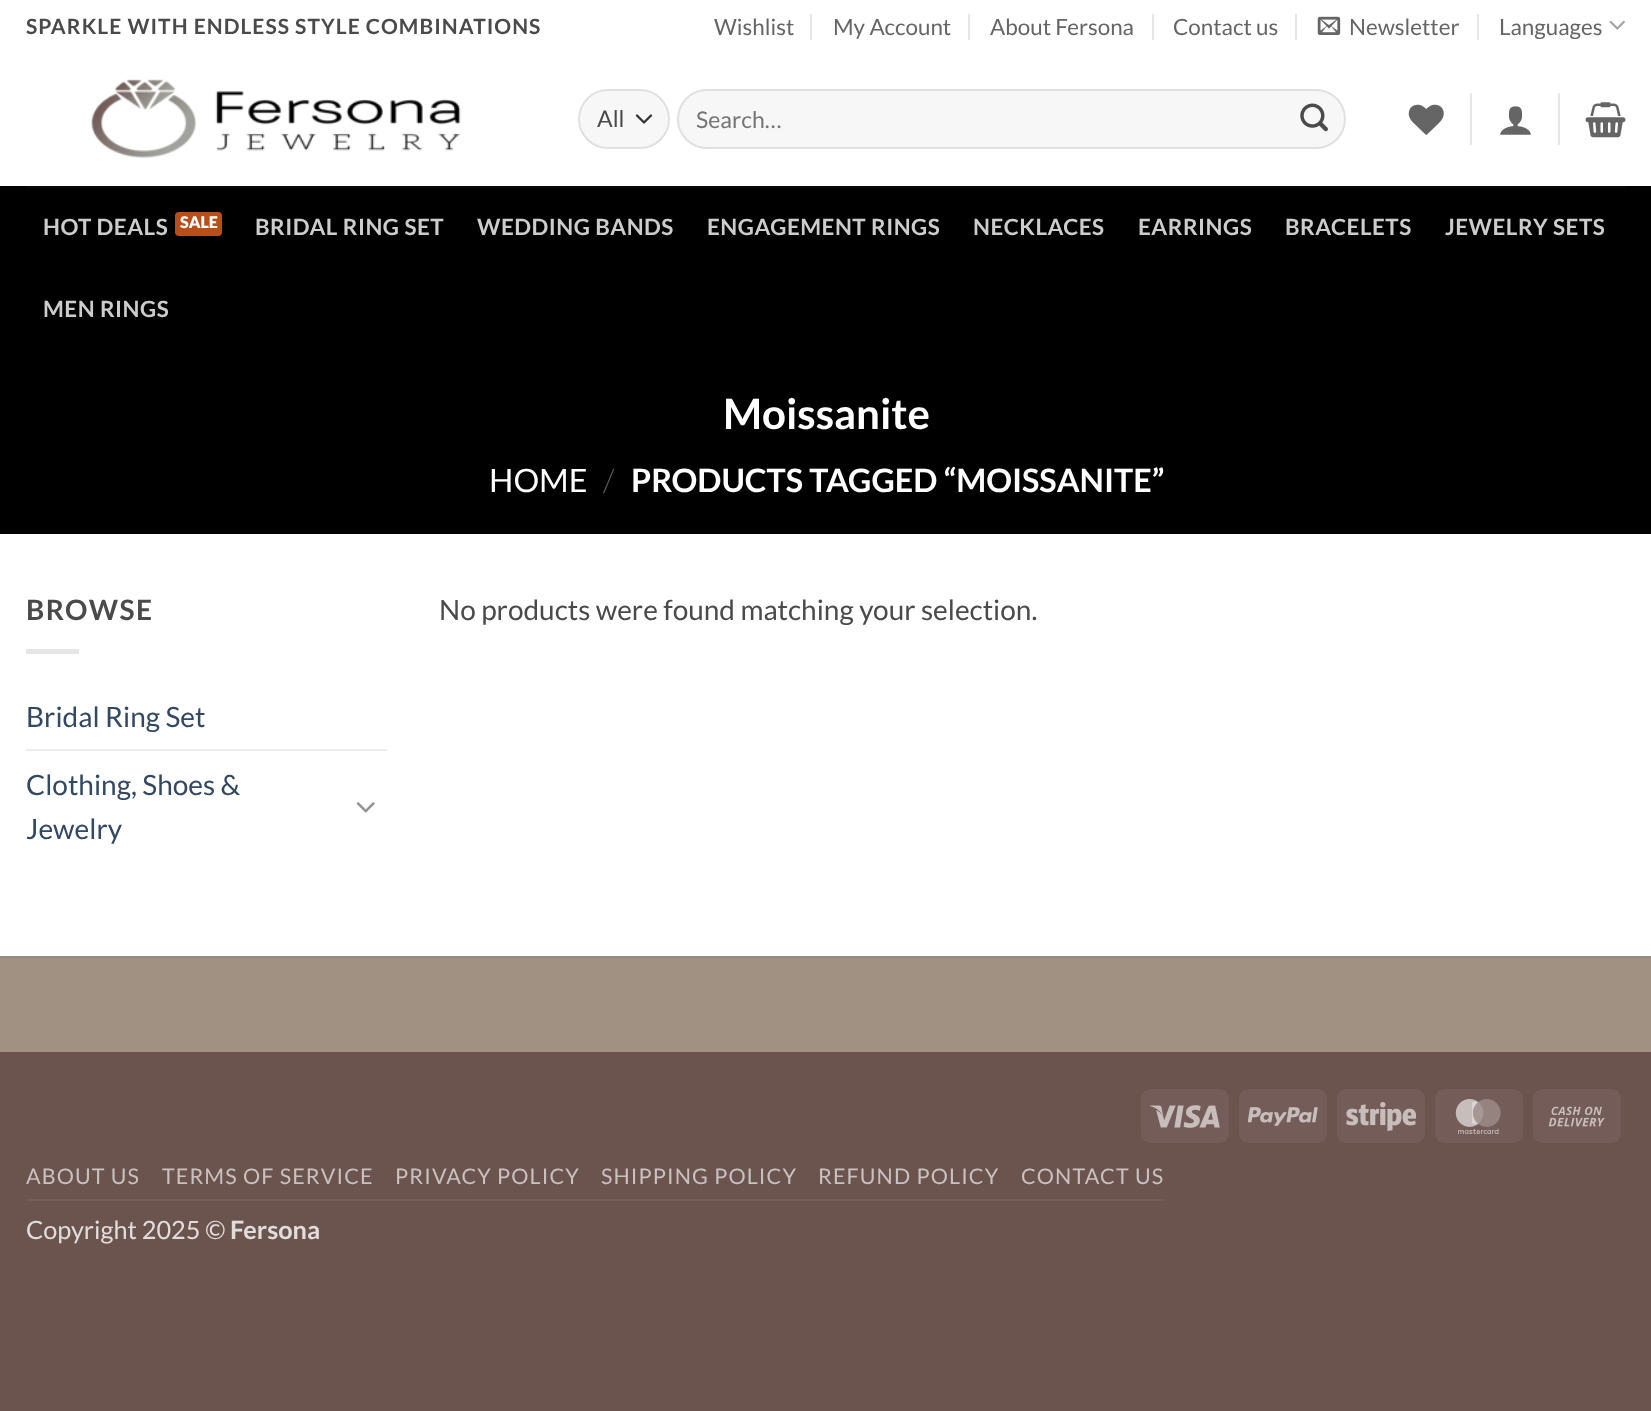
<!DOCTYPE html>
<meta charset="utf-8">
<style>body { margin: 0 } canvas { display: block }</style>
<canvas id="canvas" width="1651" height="1411"></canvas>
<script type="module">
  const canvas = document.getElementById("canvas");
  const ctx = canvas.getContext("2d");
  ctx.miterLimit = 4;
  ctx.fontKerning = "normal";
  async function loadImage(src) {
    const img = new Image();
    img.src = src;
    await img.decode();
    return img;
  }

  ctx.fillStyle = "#6b534e";
  ctx.fillRect(0, 0, 1651, 1411);
  ctx.fillStyle = "#ffffff";
  ctx.fillRect(0, 0, 1651, 956);
  ctx.letterSpacing = "1.05px";
  ctx.font = "bold 21px Lato";
  ctx.fillStyle = "#4a4a4a";
  ctx.fillText("SPARKLE WITH ENDLESS STYLE COMBINATIONS", 26, 34);
  ctx.letterSpacing = "0px";
  ctx.font = "22.4px Lato";
  ctx.fillStyle = "#656565";
  ctx.fillText("Wishlist", 714, 35);
  ctx.fillStyle = "#e6e6e6";
  ctx.fillRect(810, 14, 2, 26);
  ctx.fillStyle = "#656565";
  ctx.fillText("My Account", 833, 35);
  ctx.fillStyle = "#e6e6e6";
  ctx.fillRect(968, 14, 2, 26);
  ctx.fillStyle = "#656565";
  ctx.fillText("About Fersona", 990, 35);
  ctx.fillStyle = "#e6e6e6";
  ctx.fillRect(1152, 14, 2, 26);
  ctx.fillStyle = "#656565";
  ctx.fillText("Contact us", 1173, 35);
  ctx.fillStyle = "#e6e6e6";
  ctx.fillRect(1295, 14, 2, 26);
  ctx.drawImage(await loadImage("img1.png"), 1317, 16, 24, 19);
  ctx.fillStyle = "#656565";
  ctx.fillText("Newsletter", 1349, 35);
  ctx.fillStyle = "#e6e6e6";
  ctx.fillRect(1477, 14, 2, 26);
  ctx.fillStyle = "#656565";
  ctx.fillText("Languages", 1499, 35);
  ctx.drawImage(await loadImage("img2.png"), 1609, 20, 16, 10);
  ctx.drawImage(await loadImage("img3.png"), 91, 79, 370, 79);
  ctx.fillStyle = "#f7f7f7";
  ctx.beginPath();
  ctx.roundRect(578, 89, 92, 60, 30);
  ctx.fill();
  ctx.beginPath();
  ctx.moveTo(637, 115.5);
  ctx.lineTo(644, 122.5);
  ctx.lineTo(651, 115.5);
  ctx.strokeStyle = "#333333";
  ctx.lineWidth = 2.3;
  ctx.lineCap = "round";
  ctx.lineJoin = "round";
  ctx.stroke();
  ctx.beginPath();
  ctx.roundRect(579, 90, 90, 58, 29);
  ctx.strokeStyle = "rgba(0, 0, 0, 0.09)";
  ctx.lineWidth = 2;
  ctx.lineJoin = "miter";
  ctx.stroke();
  ctx.font = "23px Lato";
  ctx.fillStyle = "#4a4a4a";
  ctx.fillText("All", 597, 127);
  ctx.fillStyle = "#f7f7f7";
  ctx.beginPath();
  ctx.roundRect(677, 89, 669, 60, 30);
  ctx.fill();
  ctx.beginPath();
  ctx.roundRect(678, 90, 667, 58, 29);
  ctx.stroke();
  ctx.fillStyle = "#757575";
  ctx.fillText("Search…", 696, 128);
  ctx.drawImage(await loadImage("img4.png"), 1300, 103, 28, 29);
  ctx.drawImage(await loadImage("img5.png"), 1408, 104, 36, 31);
  ctx.fillStyle = "#e6e6e6";
  ctx.fillRect(1470, 93, 2, 52);
  ctx.drawImage(await loadImage("img6.png"), 1500, 106, 31, 29);
  ctx.fillRect(1558, 93, 2, 52);
  ctx.drawImage(await loadImage("img7.png"), 1585, 102, 41, 36);
  ctx.fillStyle = "#000000";
  ctx.fillRect(0, 186, 1651, 348);
  ctx.fillStyle = "#070707";
  ctx.fillRect(26, 186, 1600, 2);
  ctx.letterSpacing = "0.5px";
  ctx.font = "bold 22.4px Lato";
  ctx.fillStyle = "#cccccc";
  ctx.fillText("HOT DEALS", 43, 235);
  ctx.fillStyle = "#b84e19";
  ctx.beginPath();
  ctx.roundRect(175, 212, 47, 24, 4);
  ctx.fill();
  ctx.letterSpacing = "0px";
  ctx.font = "900 16px Lato";
  ctx.fillStyle = "#ffffff";
  ctx.fillText("SALE", 180, 228);
  ctx.letterSpacing = "0.5px";
  ctx.font = "bold 22.4px Lato";
  ctx.fillStyle = "#cccccc";
  ctx.fillText("BRIDAL RING SET", 255, 235);
  ctx.fillText("WEDDING BANDS", 477, 235);
  ctx.fillText("ENGAGEMENT RINGS", 707, 235);
  ctx.fillText("NECKLACES", 973, 235);
  ctx.fillText("EARRINGS", 1138, 235);
  ctx.fillText("BRACELETS", 1285, 235);
  ctx.fillText("JEWELRY SETS", 1445, 235);
  ctx.fillText("MEN RINGS", 43, 317);
  ctx.letterSpacing = "0px";
  ctx.font = "bold 42px Lato";
  ctx.fillStyle = "#ffffff";
  ctx.fillText("Moissanite", 723, 429);
  ctx.font = "32.25px Lato";
  ctx.fillText("HOME", 489, 492);
  ctx.font = "300 32.25px Lato";
  ctx.fillStyle = "#595959";
  ctx.fillText("/", 603, 492);
  ctx.font = "bold 32.25px Lato";
  ctx.fillStyle = "#ffffff";
  ctx.fillText("PRODUCTS TAGGED “MOISSANITE”", 631, 492);
  ctx.letterSpacing = "1.5px";
  ctx.font = "bold 28px Lato";
  ctx.fillStyle = "#4a4a4a";
  ctx.fillText("BROWSE", 26, 620);
  ctx.fillStyle = "#e6e6e6";
  ctx.fillRect(26, 649, 53, 5);
  ctx.letterSpacing = "0px";
  ctx.font = "28px Lato";
  ctx.fillStyle = "#334862";
  ctx.fillText("Bridal Ring Set", 26, 727);
  ctx.fillStyle = "#ececec";
  ctx.fillRect(26, 749, 361, 2);
  ctx.fillStyle = "#334862";
  ctx.fillText("Clothing, Shoes &", 26, 795);
  ctx.fillText("Jewelry", 26, 839);
  ctx.drawImage(await loadImage("img8.png"), 356, 802, 19, 11);
  ctx.fillStyle = "#4a4a4a";
  ctx.fillText("No products were found matching your selection.", 439, 620);
  ctx.fillStyle = "#a09182";
  ctx.fillRect(0, 958, 1651, 94);
  ctx.fillStyle = "#988a7c";
  ctx.fillRect(0, 956, 1651, 2);
  ctx.fillStyle = "#745d59";
  ctx.beginPath();
  ctx.roundRect(1141, 1089, 88, 54, 9);
  ctx.fill();
  ctx.drawImage(await loadImage("img9.png"), 1150, 1105, 70, 23);
  ctx.beginPath();
  ctx.roundRect(1239, 1089, 88, 54, 9);
  ctx.fill();
  ctx.drawImage(await loadImage("img10.png"), 1248, 1107, 70, 19);
  ctx.beginPath();
  ctx.roundRect(1337, 1089, 88, 54, 9);
  ctx.fill();
  ctx.drawImage(await loadImage("img11.png"), 1346, 1102, 70, 29);
  ctx.beginPath();
  ctx.roundRect(1435, 1089, 88, 54, 9);
  ctx.fill();
  ctx.drawImage(await loadImage("img12.png"), 1455, 1099, 46, 35);
  ctx.beginPath();
  ctx.roundRect(1533, 1089, 88, 54, 9);
  ctx.fill();
  ctx.drawImage(await loadImage("img13.png"), 1548, 1106, 57, 21);
  ctx.fillStyle = "#745e59";
  ctx.fillRect(26, 1199, 1138, 2);
  ctx.letterSpacing = "1.1px";
  ctx.font = "21.5px Lato";
  ctx.fillStyle = "#c9c1c0";
  ctx.fillText("ABOUT US", 26, 1184);
  ctx.fillText("TERMS OF SERVICE", 162, 1184);
  ctx.fillText("PRIVACY POLICY", 395, 1184);
  ctx.fillText("SHIPPING POLICY", 601, 1184);
  ctx.fillText("REFUND POLICY", 818, 1184);
  ctx.fillText("CONTACT US", 1021, 1184);
  ctx.letterSpacing = "0px";
  ctx.font = "25.25px Lato";
  ctx.fillStyle = "#e1dddc";
  ctx.fillText("Copyright 2025 ©", 26, 1239);
  ctx.font = "bold 25.25px Lato";
  ctx.fillText("Fersona", 230, 1239);
</script>
